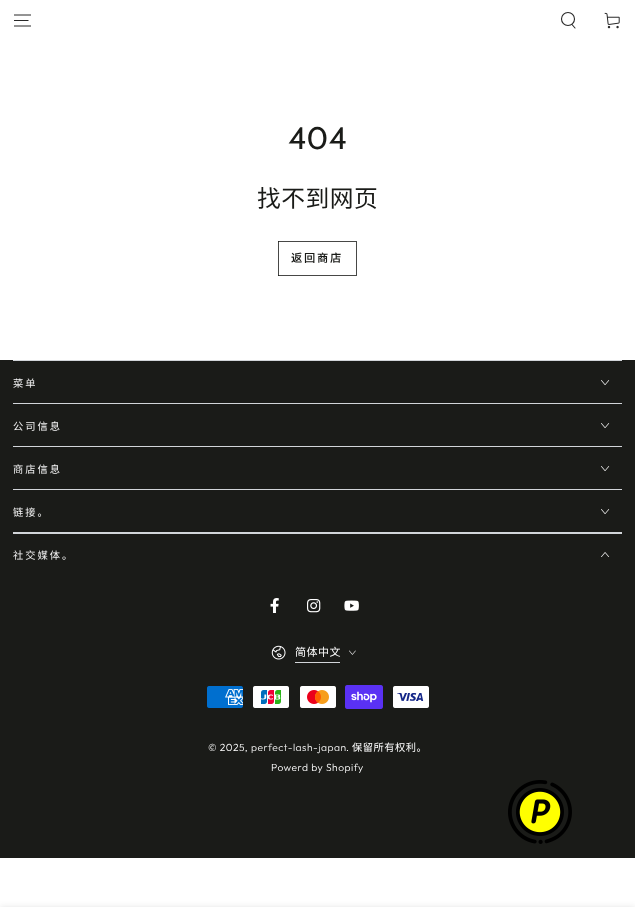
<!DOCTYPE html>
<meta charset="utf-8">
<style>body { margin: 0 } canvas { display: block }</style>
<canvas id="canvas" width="635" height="907"></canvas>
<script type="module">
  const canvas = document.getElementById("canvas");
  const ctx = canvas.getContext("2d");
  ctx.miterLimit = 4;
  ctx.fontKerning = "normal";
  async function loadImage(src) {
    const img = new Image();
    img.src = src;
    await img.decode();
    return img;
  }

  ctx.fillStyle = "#ffffff";
  ctx.fillRect(0, 0, 635, 907);
  ctx.beginPath();
  ctx.moveTo(14, 26);
  ctx.lineTo(31, 26);
  ctx.moveTo(14, 20.5);
  ctx.lineTo(28.5, 20.5);
  ctx.moveTo(14, 15);
  ctx.lineTo(31, 15);
  ctx.strokeStyle = "#282828";
  ctx.stroke();
  ctx.beginPath();
  ctx.arc(568, 19, 6.5, 0, Math.PI * 2);
  ctx.lineWidth = 1.1;
  ctx.stroke();
  ctx.beginPath();
  ctx.moveTo(572, 24.5);
  ctx.lineTo(575, 28);
  ctx.lineCap = "round";
  ctx.stroke();
  ctx.drawImage(await loadImage("img1.png"), 604, 12, 16, 17);
  ctx.letterSpacing = "0.5px";
  ctx.font = "31px Cabin";
  ctx.fillStyle = "#1a1b18";
  ctx.fillText("404", 288, 149);
  ctx.font = "23.75px Noto Sans CJK SC";
  ctx.fillText("找不到网页", 257, 207);
  ctx.strokeStyle = "#1a1b18";
  ctx.lineWidth = 0.8;
  ctx.strokeRect(278.4, 241.4, 78.2, 34.2);
  ctx.letterSpacing = "2px";
  ctx.font = "bold 11px Noto Sans CJK SC";
  ctx.fillText("返回商店", 291, 262);
  ctx.fillRect(0, 360, 635, 498);
  ctx.fillStyle = "#d2d5d9";
  ctx.fillRect(13, 360, 609, 1);
  ctx.fillRect(13, 403, 609, 1);
  ctx.font = "10.25px Noto Sans CJK SC";
  ctx.fillStyle = "#f3f3f3";
  ctx.fillText("菜单", 13, 387);
  ctx.drawImage(await loadImage("img2.png"), 601, 380, 9, 5);
  ctx.fillStyle = "#d2d5d9";
  ctx.fillRect(13, 446, 609, 1);
  ctx.fillStyle = "#f3f3f3";
  ctx.fillText("公司信息", 13, 430);
  ctx.drawImage(await loadImage("img2.png"), 601, 423, 9, 5);
  ctx.fillStyle = "#d2d5d9";
  ctx.fillRect(13, 489, 609, 1);
  ctx.fillStyle = "#f3f3f3";
  ctx.fillText("商店信息", 13, 473);
  ctx.drawImage(await loadImage("img2.png"), 601, 466, 9, 5);
  ctx.fillStyle = "#d2d5d9";
  ctx.fillRect(13, 532, 609, 2);
  ctx.fillStyle = "#f3f3f3";
  ctx.fillText("链接。", 13, 516);
  ctx.drawImage(await loadImage("img2.png"), 601, 509, 9, 5);
  ctx.fillText("社交媒体。", 13, 559);
  ctx.drawImage(await loadImage("img3.png"), 601, 552, 9, 5);
  ctx.drawImage(await loadImage("img4.png"), 270, 598, 9, 15);
  ctx.drawImage(await loadImage("img5.png"), 307, 599, 14, 14);
  ctx.drawImage(await loadImage("img6.png"), 344, 600, 15, 11);
  ctx.drawImage(await loadImage("img7.png"), 271, 645, 15, 15);
  ctx.fillStyle = "#d2d5d9";
  ctx.fillRect(295, 662, 45, 1);
  ctx.letterSpacing = "0.5px";
  ctx.font = "11px Noto Sans CJK SC";
  ctx.fillStyle = "#ffffff";
  ctx.fillText("简体中文", 295, 656);
  ctx.drawImage(await loadImage("img8.png"), 349, 650, 7, 5);
  ctx.drawImage(await loadImage("img9.png"), 207, 686, 36, 22);
  ctx.drawImage(await loadImage("img10.png"), 253, 686, 36, 22);
  ctx.drawImage(await loadImage("img11.png"), 300, 686, 36, 22);
  ctx.drawImage(await loadImage("img12.png"), 345, 685, 38, 24);
  ctx.drawImage(await loadImage("img13.png"), 393, 686, 36, 22);
  ctx.font = "300 10.25px Outfit";
  ctx.fillText("© 2025,", 208, 751);
  ctx.fillStyle = "#f3f3f3";
  ctx.fillText("perfect-lash-japan", 251, 751);
  ctx.fillStyle = "#ffffff";
  ctx.fillText(".", 346, 751);
  ctx.font = "10.25px Noto Sans CJK SC";
  ctx.fillText("保留所有权利。", 352, 751);
  ctx.font = "300 10.25px Outfit";
  ctx.fillText("Powerd by Shopify", 271, 771);
  ctx.fillStyle = "rgba(26, 27, 24, 0.15)";
  ctx.filter = "blur(3.5px)";
  ctx.beginPath();
  ctx.rect(0, 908, 635, 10);
  ctx.fill();
  ctx.filter = "none";
  ctx.drawImage(await loadImage("img14.png"), 508, 780, 64, 64);
</script>
